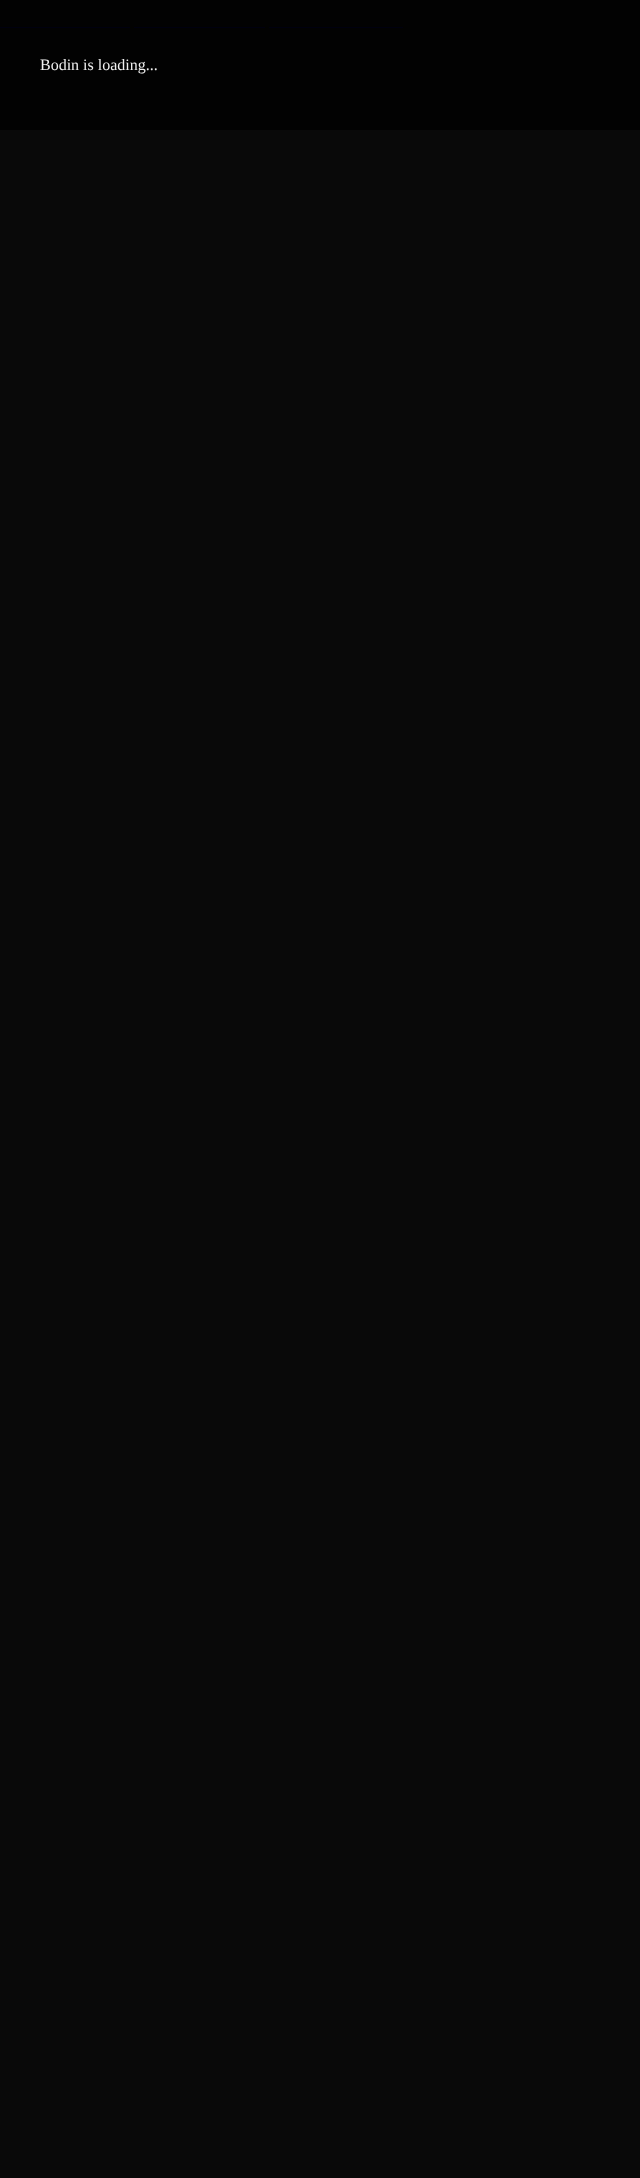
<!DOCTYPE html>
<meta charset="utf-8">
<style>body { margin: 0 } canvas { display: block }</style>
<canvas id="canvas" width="640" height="2178"></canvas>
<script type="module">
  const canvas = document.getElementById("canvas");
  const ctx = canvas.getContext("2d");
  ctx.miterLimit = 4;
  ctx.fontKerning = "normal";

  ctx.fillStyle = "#090909";
  ctx.fillRect(0, 0, 640, 2178);
  ctx.fillStyle = "#020202";
  ctx.fillRect(0, 0, 640, 130);
  ctx.fillStyle = "#00000f";
  ctx.fillRect(0, 27, 130, 1);
  ctx.fillRect(134, 27, 131, 1);
  ctx.fillRect(269, 27, 134, 1);
  ctx.font = "16px Liberation Serif";
  ctx.fillStyle = "#efefef";
  ctx.fillText("Bodin is loading...", 40, 70);
</script>
